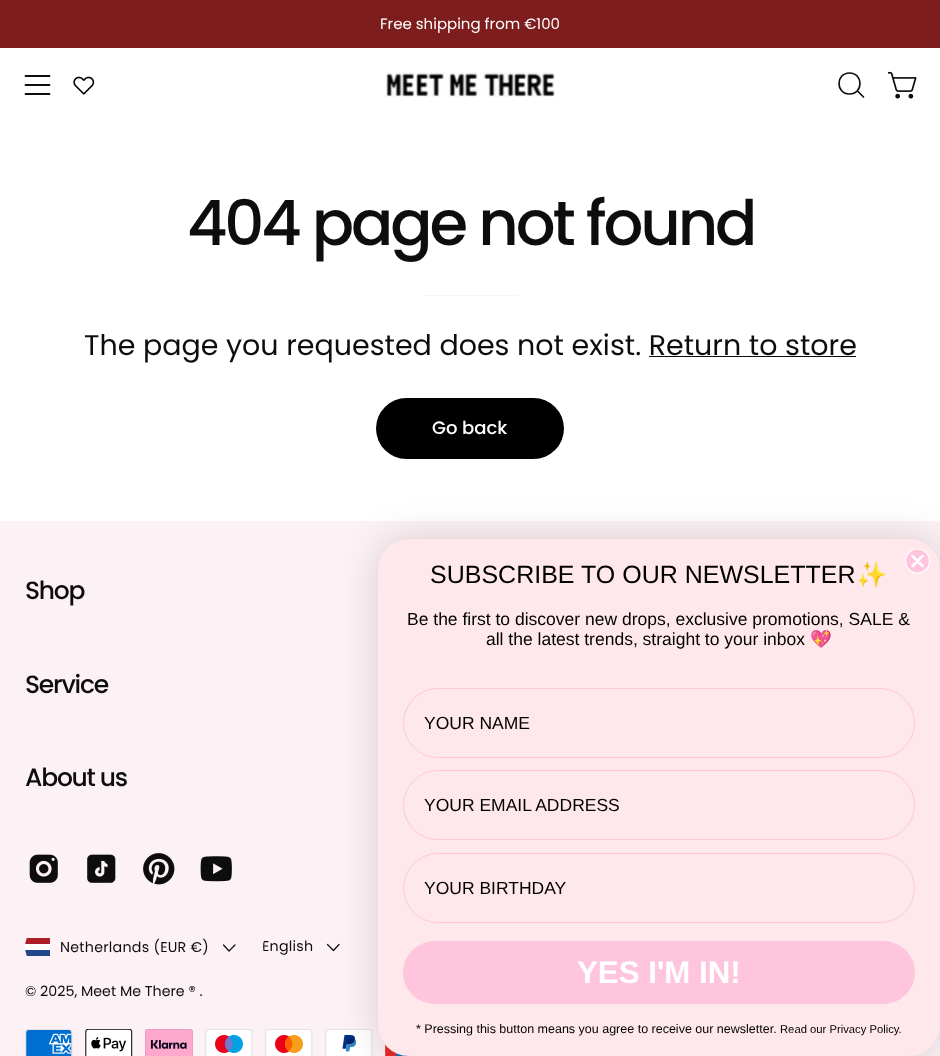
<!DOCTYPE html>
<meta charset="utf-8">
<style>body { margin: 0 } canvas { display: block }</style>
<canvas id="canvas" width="940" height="1056"></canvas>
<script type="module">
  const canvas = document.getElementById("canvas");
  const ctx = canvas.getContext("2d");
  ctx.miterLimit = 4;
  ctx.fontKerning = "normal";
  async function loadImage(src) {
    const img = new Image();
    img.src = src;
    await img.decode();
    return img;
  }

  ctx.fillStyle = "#ffffff";
  ctx.fillRect(0, 0, 940, 1056);
  ctx.fillStyle = "#7e1d1d";
  ctx.fillRect(0, 0, 940, 48);
  ctx.font = "15px Poppins";
  ctx.fillStyle = "#ffffff";
  ctx.fillText("Free shipping from €100", 380, 29);
  ctx.beginPath();
  ctx.moveTo(25.5, 85);
  ctx.lineTo(49.5, 85);
  ctx.moveTo(25.5, 76);
  ctx.lineTo(49.5, 76);
  ctx.moveTo(25.5, 94);
  ctx.lineTo(49.5, 94);
  ctx.strokeStyle = "#0d0d0d";
  ctx.lineWidth = 1.8;
  ctx.lineCap = "round";
  ctx.lineJoin = "round";
  ctx.stroke();
  ctx.drawImage(await loadImage("img1.png"), 73, 76, 22, 19);
  ctx.drawImage(await loadImage("img2.png"), 386, 72, 169, 25);
  ctx.beginPath();
  ctx.moveTo(849.5, 94);
  ctx.bezierCurveTo(863.5, 94, 863.5, 73, 849.5, 73);
  ctx.bezierCurveTo(835.5, 73, 835.5, 94, 849.5, 94);
  ctx.closePath();
  ctx.moveTo(857.5, 91);
  ctx.lineTo(863.5, 97);
  ctx.lineWidth = 1.7;
  ctx.stroke();
  ctx.drawImage(await loadImage("img3.png"), 888, 71, 29, 28);
  ctx.letterSpacing = "-3.1px";
  ctx.font = "500 62.5px Poppins";
  ctx.fillStyle = "#0d0d0d";
  ctx.fillText("404 page not found", 187, 245);
  ctx.fillStyle = "#fcf1f4";
  ctx.fillRect(424, 295, 94, 1);
  ctx.letterSpacing = "0px";
  ctx.font = "28.5px Poppins";
  ctx.fillStyle = "#0d0d0d";
  ctx.fillText("The page you requested does not exist. Return to store", 84, 355);
  ctx.fillRect(649, 356, 207, 1);
  ctx.fillStyle = "#000000";
  ctx.beginPath();
  ctx.roundRect(376, 398, 188, 61, 30.5);
  ctx.fill();
  ctx.font = "500 18px Poppins";
  ctx.fillStyle = "#ffffff";
  ctx.fillText("Go back", 432, 434);
  ctx.fillStyle = "#fcf1f4";
  ctx.fillRect(0, 521, 940, 535);
  ctx.letterSpacing = "-1.25px";
  ctx.font = "500 25px Poppins";
  ctx.fillStyle = "#0d0d0d";
  ctx.fillText("Shop", 25, 599);
  ctx.fillText("Service", 25, 693);
  ctx.fillText("About us", 25, 786);
  ctx.drawImage(await loadImage("img4.png"), 29, 854, 29, 29);
  ctx.drawImage(await loadImage("img5.png"), 87, 854, 29, 29);
  ctx.drawImage(await loadImage("img6.png"), 143, 853, 32, 32);
  ctx.drawImage(await loadImage("img7.png"), 200, 856, 32, 26);
  ctx.save();
  ctx.beginPath();
  ctx.roundRect(25, 925, 213, 44, 22);
  ctx.clip();
  ctx.fillStyle = "#ffffff";
  ctx.fillRect(25, 938, 25, 18);
  ctx.fillStyle = "#21468b";
  ctx.fillRect(25, 950, 25, 6);
  ctx.fillStyle = "#ae1c28";
  ctx.fillRect(25, 938, 25, 6);
  ctx.restore();
  ctx.letterSpacing = "0.25px";
  ctx.font = "14.25px Poppins";
  ctx.fillText("Netherlands (EUR €)", 60, 952);
  ctx.beginPath();
  ctx.moveTo(235, 945);
  ctx.lineTo(229, 951);
  ctx.lineTo(223.5, 945);
  ctx.lineWidth = 1.2;
  ctx.stroke();
  ctx.save();
  ctx.beginPath();
  ctx.roundRect(263, 925, 78, 44, 22);
  ctx.clip();
  ctx.fillText("English", 262, 951);
  ctx.restore();
  ctx.beginPath();
  ctx.moveTo(339, 944.5);
  ctx.lineTo(333.5, 950.5);
  ctx.lineTo(327.5, 944.5);
  ctx.stroke();
  ctx.letterSpacing = "0px";
  ctx.fillText("© 2025, Meet Me There ® .", 25, 996);
  ctx.drawImage(await loadImage("img8.png"), 25, 1029, 48, 27);
  ctx.drawImage(await loadImage("img9.png"), 85, 1029, 48, 27);
  ctx.drawImage(await loadImage("img10.png"), 145, 1029, 48, 27);
  ctx.drawImage(await loadImage("img11.png"), 205, 1029, 48, 27);
  ctx.drawImage(await loadImage("img12.png"), 265, 1029, 48, 27);
  ctx.drawImage(await loadImage("img13.png"), 325, 1029, 48, 27);
  ctx.drawImage(await loadImage("img14.png"), 385, 1044, 24, 12);
  ctx.fillStyle = "rgba(0, 0, 0, 0.15)";
  ctx.filter = "blur(19px)";
  ctx.beginPath();
  ctx.roundRect(378, 539, 562, 517, 31);
  ctx.fill();
  ctx.filter = "none";
  ctx.fillStyle = "#ffe8ec";
  ctx.beginPath();
  ctx.roundRect(378, 539, 562, 517, 31);
  ctx.fill();
  ctx.font = "25px Liberation Sans";
  ctx.fillStyle = "#010101";
  ctx.fillText("SUBSCRIBE TO OUR NEWSLETTER", 430, 583);
  ctx.font = "25px Noto Color Emoji";
  ctx.fillText("✨", 856, 583);
  ctx.font = "17.5px Liberation Sans";
  ctx.fillText("Be the first to discover new drops, exclusive promotions, SALE &", 407, 625);
  ctx.fillText("all the latest trends, straight to your inbox", 486, 645);
  ctx.font = "17.5px Noto Color Emoji";
  ctx.fillText("💖", 810, 645);
  ctx.beginPath();
  ctx.roundRect(403.5, 688.5, 511, 69, 34.5);
  ctx.strokeStyle = "#ffc5dc";
  ctx.lineWidth = 1;
  ctx.lineJoin = "miter";
  ctx.stroke();
  ctx.font = "17.5px Liberation Sans";
  ctx.fillText("YOUR NAME", 424, 729);
  ctx.beginPath();
  ctx.roundRect(403.5, 770.5, 511, 69, 34.5);
  ctx.stroke();
  ctx.fillText("YOUR EMAIL ADDRESS", 424, 811);
  ctx.beginPath();
  ctx.roundRect(403.5, 853.5, 511, 69, 34.5);
  ctx.stroke();
  ctx.fillText("YOUR BIRTHDAY", 424, 894);
  ctx.fillStyle = "#ffc5dc";
  ctx.beginPath();
  ctx.roundRect(403, 941, 512, 63, 31.5);
  ctx.fill();
  ctx.font = "bold 31.25px Liberation Sans";
  ctx.fillStyle = "#ffffff";
  ctx.fillText("YES I'M IN!", 577, 983);
  ctx.font = "12.5px Liberation Sans";
  ctx.fillStyle = "#010101";
  ctx.fillText("* Pressing this button means you agree to receive our newsletter.", 416, 1033);
  ctx.font = "11.25px Liberation Sans";
  ctx.fillText("Read our Privacy Policy.", 780, 1033);
  ctx.fillStyle = "#ffc5dc";
  ctx.beginPath();
  ctx.arc(917.5, 561, 12, 0, Math.PI * 2);
  ctx.fill();
  ctx.save();
  ctx.beginPath();
  ctx.rect(905, 549, 25, 25);
  ctx.clip();
  ctx.beginPath();
  ctx.arc(917.5, 561, 12, 0, Math.PI * 2);
  ctx.strokeStyle = "#ffffff";
  ctx.lineWidth = 1.2;
  ctx.stroke();
  ctx.restore();
  ctx.beginPath();
  ctx.moveTo(912.5, 556);
  ctx.lineTo(922.5, 566);
  ctx.moveTo(912.5, 566);
  ctx.lineTo(922.5, 556);
  ctx.closePath();
  ctx.strokeStyle = "#ffffff";
  ctx.lineWidth = 2.5;
  ctx.lineJoin = "round";
  ctx.stroke();
</script>
